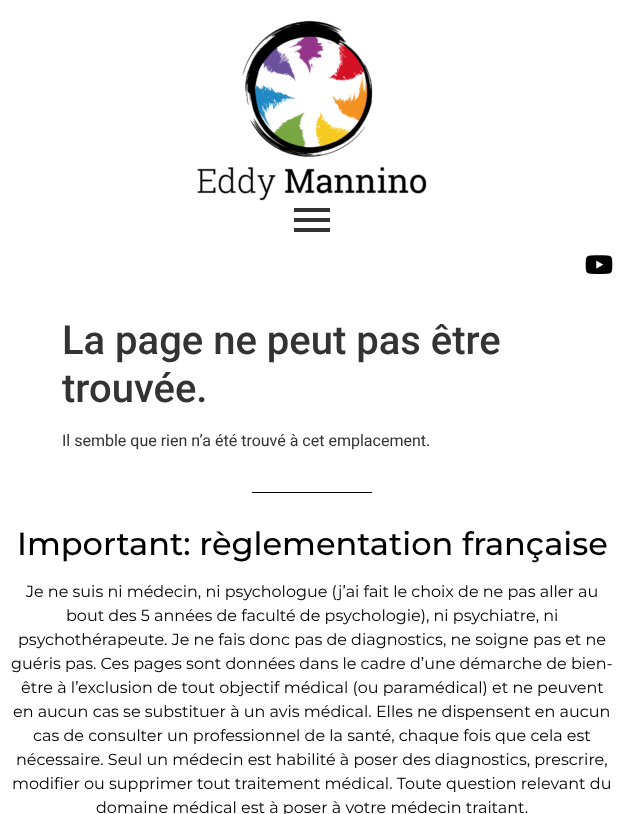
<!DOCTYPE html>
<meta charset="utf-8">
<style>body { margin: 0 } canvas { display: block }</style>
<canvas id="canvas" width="624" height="814"></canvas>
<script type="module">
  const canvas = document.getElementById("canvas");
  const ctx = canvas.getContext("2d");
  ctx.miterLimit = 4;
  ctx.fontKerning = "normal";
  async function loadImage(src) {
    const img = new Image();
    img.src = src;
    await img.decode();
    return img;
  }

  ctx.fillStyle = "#ffffff";
  ctx.fillRect(0, 0, 624, 814);
  ctx.drawImage(await loadImage("img1.png"), 197, 20, 230, 181);
  ctx.fillStyle = "#333333";
  ctx.fillRect(294, 208, 36, 4);
  ctx.fillRect(294, 218, 36, 4);
  ctx.fillRect(294, 228, 36, 4);
  ctx.drawImage(await loadImage("img2.png"), 585, 255, 28, 19);
  ctx.font = "500 40px Roboto";
  ctx.fillText("La page ne peut pas être", 62, 354);
  ctx.fillText("trouvée.", 62, 402);
  ctx.font = "16px Roboto";
  ctx.fillText("Il semble que rien n’a été trouvé à cet emplacement.", 62, 446);
  ctx.fillStyle = "#000000";
  ctx.fillRect(252, 492, 120, 1);
  ctx.font = "500 32px Montserrat";
  ctx.fillText("Important: règlementation française", 17, 555);
  ctx.font = "16px Montserrat";
  ctx.fillText("Je ne suis ni médecin, ni psychologue (j’ai fait le choix de ne pas aller au", 26, 597);
  ctx.fillText("bout des 5 années de faculté de psychologie), ni psychiatre, ni", 66, 621);
  ctx.fillText("psychothérapeute. Je ne fais donc pas de diagnostics, ne soigne pas et ne", 18, 645);
  ctx.fillText("guéris pas. Ces pages sont données dans le cadre d’une démarche de bien-", 11, 669);
  ctx.fillText("être à l’exclusion de tout objectif médical (ou paramédical) et ne peuvent", 21, 693);
  ctx.fillText("en aucun cas se substituer à un avis médical. Elles ne dispensent en aucun", 13, 717);
  ctx.fillText("cas de consulter un professionnel de la santé, chaque fois que cela est", 33, 741);
  ctx.fillText("nécessaire. Seul un médecin est habilité à poser des diagnostics, prescrire,", 16, 765);
  ctx.fillText("modifier ou supprimer tout traitement médical. Toute question relevant du", 12, 789);
  ctx.fillText("domaine médical est à poser à votre médecin traitant.", 96, 813);
</script>
